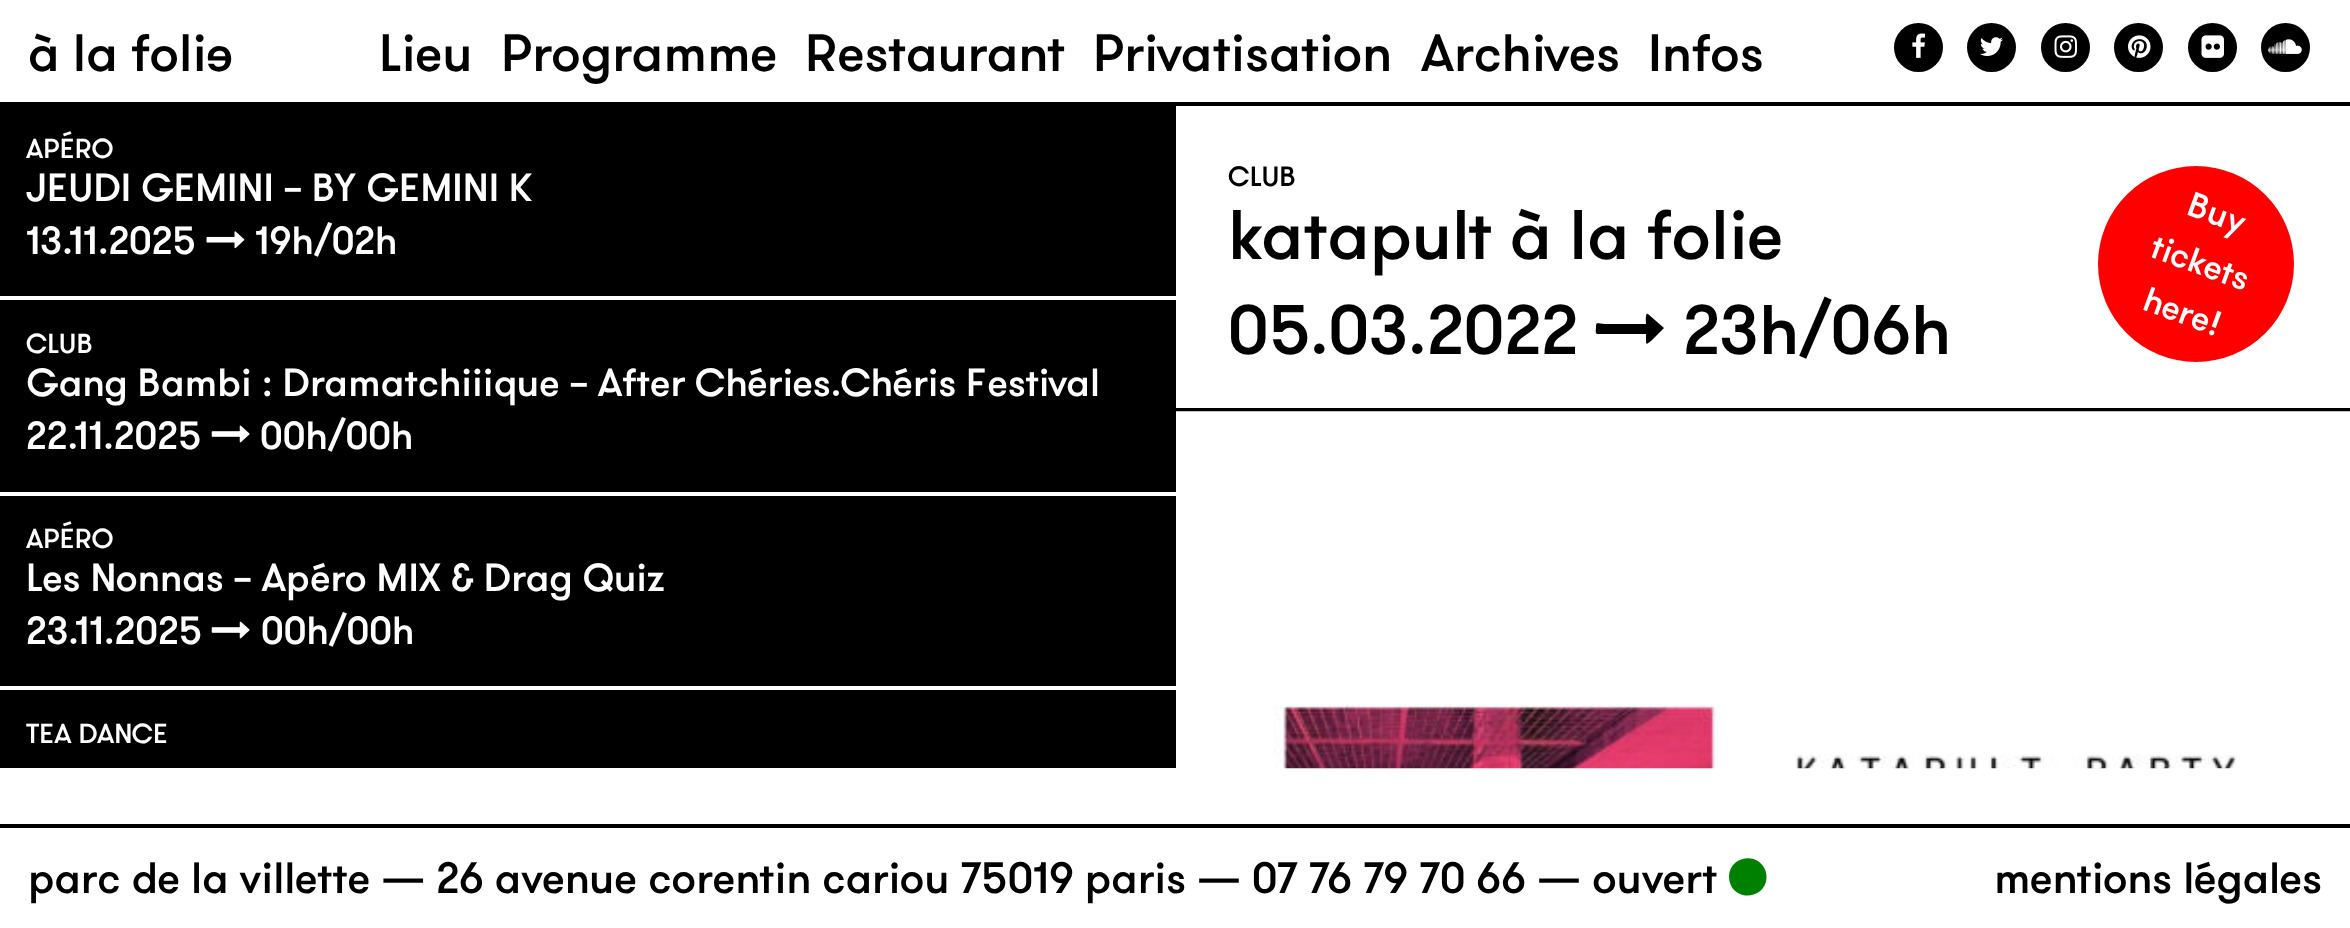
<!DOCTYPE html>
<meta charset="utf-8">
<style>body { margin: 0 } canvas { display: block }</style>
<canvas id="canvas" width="2350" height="928"></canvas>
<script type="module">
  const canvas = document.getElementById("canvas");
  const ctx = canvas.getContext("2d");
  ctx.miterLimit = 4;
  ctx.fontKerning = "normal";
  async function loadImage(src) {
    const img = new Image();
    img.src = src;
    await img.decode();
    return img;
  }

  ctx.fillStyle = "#ffffff";
  ctx.fillRect(0, 0, 2350, 928);
  ctx.fillStyle = "#000000";
  ctx.fillRect(0, 102, 2350, 4);
  ctx.font = "500 52.5px 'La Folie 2'";
  ctx.fillText("à la folie", 28, 71);
  ctx.font = "500 52.5px 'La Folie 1'";
  ctx.fillText("Lieu", 379, 71);
  ctx.fillText("Programme", 501, 71);
  ctx.fillText("Restaurant", 805, 71);
  ctx.fillText("Privatisation", 1093, 71);
  ctx.fillText("Archives", 1421, 71);
  ctx.fillText("Infos", 1648, 71);
  ctx.beginPath();
  ctx.arc(1918.5, 47.5, 24.5, 0, Math.PI * 2);
  ctx.fill();
  ctx.drawImage(await loadImage("img1.png"), 1912, 33, 14, 25);
  ctx.beginPath();
  ctx.arc(1991.5, 47.5, 24.5, 0, Math.PI * 2);
  ctx.fill();
  ctx.drawImage(await loadImage("img2.png"), 1980, 37, 23, 19);
  ctx.beginPath();
  ctx.arc(2065.5, 47.5, 24.5, 0, Math.PI * 2);
  ctx.fill();
  ctx.drawImage(await loadImage("img3.png"), 2054, 35, 23, 23);
  ctx.beginPath();
  ctx.arc(2138.5, 47.5, 24.5, 0, Math.PI * 2);
  ctx.fill();
  ctx.drawImage(await loadImage("img4.png"), 2128, 35, 23, 23);
  ctx.beginPath();
  ctx.arc(2212.5, 47.5, 24.5, 0, Math.PI * 2);
  ctx.fill();
  ctx.drawImage(await loadImage("img5.png"), 2201, 35, 23, 23);
  ctx.beginPath();
  ctx.arc(2285.5, 47.5, 24.5, 0, Math.PI * 2);
  ctx.fill();
  ctx.drawImage(await loadImage("img6.png"), 2268, 39, 34, 15);
  ctx.fillRect(0, 106, 1176, 662);
  ctx.fillStyle = "#ffffff";
  ctx.fillRect(0, 296, 1176, 4);
  ctx.font = "500 27.5px 'La Folie 1'";
  ctx.fillText("APÉRO", 26, 158);
  ctx.font = "500 39.2px 'La Folie 1'";
  ctx.fillText("JEUDI GEMINI - BY GEMINI K", 26, 201);
  ctx.fillText("13.11.2025", 26, 254);
  ctx.drawImage(await loadImage("img7.png"), 206, 231, 39, 18);
  ctx.fillText("19h/02h", 255, 254);
  ctx.fillRect(0, 492, 1176, 4);
  ctx.font = "500 27.5px 'La Folie 1'";
  ctx.fillText("CLUB", 26, 353);
  ctx.font = "500 39.2px 'La Folie 1'";
  ctx.fillText("Gang Bambi : Dramatchiiique - After Chéries.Chéris Festival", 26, 396);
  ctx.fillText("22.11.2025", 26, 449);
  ctx.drawImage(await loadImage("img8.png"), 211, 425, 39, 18);
  ctx.fillText("00h/00h", 260, 449);
  ctx.fillRect(0, 686, 1176, 4);
  ctx.font = "500 27.5px 'La Folie 1'";
  ctx.fillText("APÉRO", 26, 548);
  ctx.font = "500 39.2px 'La Folie 1'";
  ctx.fillText("Les Nonnas - Apéro MIX & Drag Quiz", 26, 591);
  ctx.fillText("23.11.2025", 26, 644);
  ctx.drawImage(await loadImage("img8.png"), 211, 621, 39, 18);
  ctx.fillText("00h/00h", 261, 644);
  ctx.font = "500 27.5px 'La Folie 1'";
  ctx.fillText("TEA DANCE", 26, 743);
  ctx.font = "500 28px 'La Folie 1'";
  ctx.fillStyle = "#000000";
  ctx.fillText("CLUB", 1228, 186);
  ctx.font = "500 70px 'La Folie 1'";
  ctx.fillText("katapult à la folie", 1228, 259);
  ctx.fillStyle = "#ff0000";
  ctx.beginPath();
  ctx.arc(2196, 264, 98, 0, Math.PI * 2);
  ctx.fill();
  ctx.font = "500 35px 'La Folie 1'";
  ctx.fillStyle = "#ffffff";
  ctx.save();
  ctx.translate(2185, 214);
  ctx.rotate(20 * Math.PI / 180);
  ctx.fillText("Buy", 0, 0);
  ctx.restore();
  ctx.save();
  ctx.translate(2148, 256);
  ctx.rotate(20 * Math.PI / 180);
  ctx.fillText("tickets", 0, 0);
  ctx.restore();
  ctx.save();
  ctx.translate(2141, 309);
  ctx.rotate(20 * Math.PI / 180);
  ctx.fillText("here!", 0, 0);
  ctx.restore();
  ctx.font = "500 70px 'La Folie 1'";
  ctx.fillStyle = "#000000";
  ctx.fillText("05.03.2022", 1228, 354);
  ctx.beginPath();
  ctx.moveTo(1664, 328);
  ctx.lineTo(1663, 329);
  ctx.lineTo(1651, 341);
  ctx.bezierCurveTo(1648, 343, 1646, 346, 1646, 341);
  ctx.lineTo(1646, 334);
  ctx.lineTo(1597, 334);
  ctx.bezierCurveTo(1595, 333, 1596, 329, 1596, 328);
  ctx.bezierCurveTo(1596, 321, 1597, 324, 1605, 324);
  ctx.lineTo(1646, 324);
  ctx.bezierCurveTo(1646, 322, 1645, 312, 1648, 314);
  ctx.closePath();
  ctx.fill();
  ctx.fillText("23h/06h", 1683, 354);
  ctx.fillRect(1176, 408, 1174, 4);
  ctx.drawImage(await loadImage("img9.png"), 1176, 411, 1174, 358);
  ctx.fillRect(0, 824, 2350, 4);
  ctx.font = "500 43.75px 'La Folie 1'";
  ctx.fillText("parc de la villette — 26 avenue corentin cariou 75019 paris — 07 76 79 70 66 — ouvert", 28, 893);
  ctx.fillStyle = "#008000";
  ctx.beginPath();
  ctx.moveTo(1764, 867.5);
  ctx.bezierCurveTo(1766, 870.5, 1766.5, 874.5, 1766.5, 878);
  ctx.bezierCurveTo(1765.5, 896.5, 1740.5, 902, 1731.5, 886.5);
  ctx.bezierCurveTo(1729.5, 883, 1729, 879.5, 1729, 875.5);
  ctx.bezierCurveTo(1730, 857.5, 1755, 851.5, 1764, 867.5);
  ctx.closePath();
  ctx.fill();
  ctx.fillStyle = "#000000";
  ctx.fillText("mentions légales", 1994, 893);
</script>
